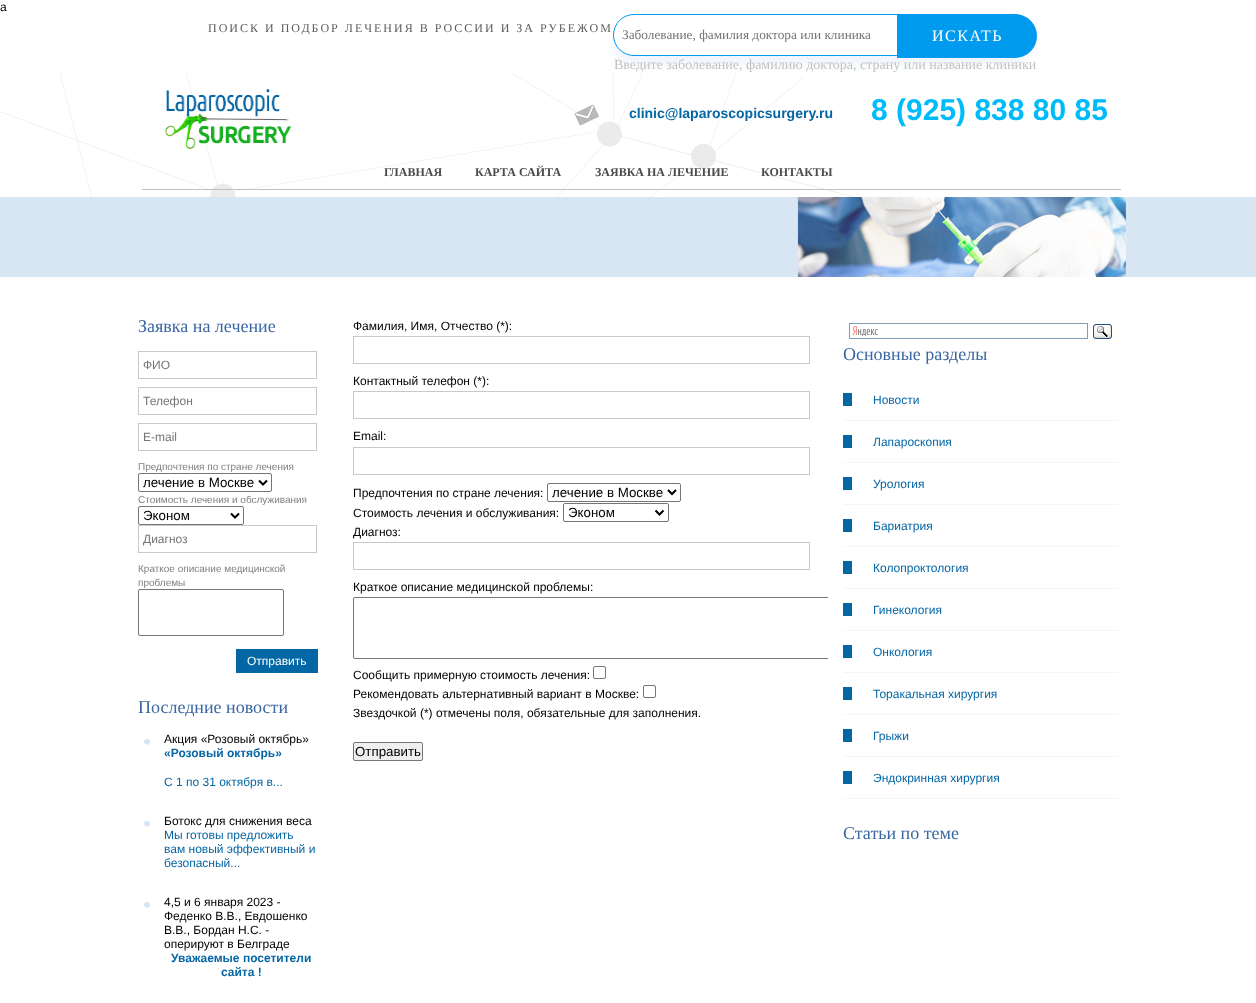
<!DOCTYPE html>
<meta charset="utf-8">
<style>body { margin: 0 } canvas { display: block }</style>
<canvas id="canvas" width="1256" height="1003"></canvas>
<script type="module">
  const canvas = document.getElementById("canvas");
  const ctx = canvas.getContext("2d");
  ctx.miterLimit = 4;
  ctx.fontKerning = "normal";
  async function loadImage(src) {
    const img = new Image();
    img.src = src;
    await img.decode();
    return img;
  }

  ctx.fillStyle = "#ffffff";
  ctx.fillRect(0, 0, 1256, 1003);
  ctx.font = "12px Liberation Sans";
  ctx.fillStyle = "#000000";
  ctx.fillText("a", 0, 11);
  ctx.letterSpacing = "2px";
  ctx.font = "12px Liberation Serif";
  ctx.fillStyle = "#5d5d5d";
  ctx.fillText("ПОИСК И ПОДБОР ЛЕЧЕНИЯ В РОССИИ И ЗА РУБЕЖОМ", 208, 32);
  ctx.fillStyle = "rgba(58, 130, 207, 0.08)";
  ctx.filter = "blur(4px)";
  ctx.beginPath();
  ctx.roundRect(613, 23, 421, 42, 21);
  ctx.fill();
  ctx.filter = "none";
  ctx.fillStyle = "#ffffff";
  ctx.beginPath();
  ctx.roundRect(613.5, 14.5, 420, 41, 20.5);
  ctx.fill();
  ctx.strokeStyle = "#009aef";
  ctx.stroke();
  ctx.letterSpacing = "0px";
  ctx.font = "13.3px Liberation Serif";
  ctx.fillStyle = "#757575";
  ctx.fillText("Заболевание, фамилия доктора или клиника", 622, 39);
  ctx.fillStyle = "#009aef";
  ctx.beginPath();
  ctx.roundRect(897, 14, 140, 44, [0, 22, 22, 0]);
  ctx.fill();
  ctx.letterSpacing = "1.5px";
  ctx.font = "16px Liberation Serif";
  ctx.fillStyle = "#ffffff";
  ctx.fillText("ИСКАТЬ", 932, 41);
  ctx.letterSpacing = "0px";
  ctx.font = "14px Liberation Serif";
  ctx.fillStyle = "#c2c2c2";
  ctx.fillText("Введите заболевание, фамилию доктора, страну или название клиники", 614, 69);
  ctx.drawImage(await loadImage("img1.png"), 0, 73, 1121, 124);
  ctx.drawImage(await loadImage("img2.png"), 165, 89, 127, 61);
  ctx.font = "bold 14px Liberation Sans";
  ctx.fillStyle = "#0566a5";
  ctx.fillText("clinic@laparoscopicsurgery.ru", 629, 118);
  ctx.font = "bold 30px Liberation Sans";
  ctx.fillStyle = "#00bbf9";
  ctx.fillText("8 (925) 838 80 85", 871, 120);
  ctx.font = "bold 12px Liberation Serif";
  ctx.fillStyle = "#4c4c4c";
  ctx.fillText("ГЛАВНАЯ", 384, 176);
  ctx.fillText("КАРТА САЙТА", 475, 176);
  ctx.fillText("ЗАЯВКА НА ЛЕЧЕНИЕ", 595, 176);
  ctx.fillText("КОНТАКТЫ", 761, 176);
  ctx.drawImage(await loadImage("img3.png"), 0, 197, 1256, 80);
  ctx.font = "18px Liberation Serif";
  ctx.fillStyle = "#3a67a1";
  ctx.fillText("Заявка на лечение", 138, 332);
  ctx.strokeStyle = "#c9c9ca";
  ctx.strokeRect(138.5, 351.5, 178, 27);
  ctx.font = "12px Liberation Sans";
  ctx.fillStyle = "#757575";
  ctx.fillText("ФИО", 143, 369);
  ctx.strokeRect(138.5, 387.5, 178, 27);
  ctx.fillText("Телефон", 143, 405);
  ctx.strokeRect(138.5, 423.5, 178, 27);
  ctx.fillText("E-mail", 143, 441);
  ctx.font = "10px Liberation Sans";
  ctx.fillStyle = "#808080";
  ctx.fillText("Предпочтения по стране лечения", 138, 470);
  ctx.beginPath();
  ctx.roundRect(138.5, 473.5, 133, 18, 1.5);
  ctx.strokeStyle = "#767676";
  ctx.stroke();
  ctx.beginPath();
  ctx.moveTo(259, 480.5);
  ctx.lineTo(263, 484.5);
  ctx.lineTo(267, 480.5);
  ctx.strokeStyle = "#000000";
  ctx.lineWidth = 2;
  ctx.stroke();
  ctx.font = "13.3px Liberation Sans";
  ctx.fillStyle = "#000000";
  ctx.fillText("лечение в Москве", 143, 487);
  ctx.font = "10px Liberation Sans";
  ctx.fillStyle = "#808080";
  ctx.fillText("Стоимость лечения и обслуживания", 138, 503);
  ctx.beginPath();
  ctx.roundRect(138.5, 506.5, 105, 18, 1.5);
  ctx.strokeStyle = "#767676";
  ctx.lineWidth = 1;
  ctx.stroke();
  ctx.beginPath();
  ctx.moveTo(231, 513.5);
  ctx.lineTo(235, 517.5);
  ctx.lineTo(239, 513.5);
  ctx.strokeStyle = "#000000";
  ctx.lineWidth = 2;
  ctx.stroke();
  ctx.font = "13.3px Liberation Sans";
  ctx.fillStyle = "#000000";
  ctx.fillText("Эконом", 143, 520);
  ctx.strokeStyle = "#c9c9ca";
  ctx.lineWidth = 1;
  ctx.strokeRect(138.5, 525.5, 178, 27);
  ctx.font = "12px Liberation Sans";
  ctx.fillStyle = "#757575";
  ctx.fillText("Диагноз", 143, 543);
  ctx.font = "10px Liberation Sans";
  ctx.fillStyle = "#808080";
  ctx.fillText("Краткое описание медицинской", 138, 572);
  ctx.fillText("проблемы", 138, 586);
  ctx.beginPath();
  ctx.roundRect(138.5, 589.5, 145, 46, 1.5);
  ctx.strokeStyle = "#767676";
  ctx.stroke();
  ctx.fillStyle = "#0366a5";
  ctx.fillRect(236, 649, 82, 24);
  ctx.font = "12px Liberation Sans";
  ctx.fillStyle = "#ffffff";
  ctx.fillText("Отправить", 247, 665);
  ctx.font = "18px Liberation Serif";
  ctx.fillStyle = "#3a67a1";
  ctx.fillText("Последние новости", 138, 713);
  ctx.drawImage(await loadImage("img4.png"), 144, 738, 6, 7);
  ctx.font = "12px Liberation Sans";
  ctx.fillStyle = "#000000";
  ctx.fillText("Акция «Розовый октябрь»", 164, 743);
  ctx.font = "bold 12px Liberation Sans";
  ctx.fillStyle = "#0566a5";
  ctx.fillText("«Розовый октябрь»", 164, 757);
  ctx.font = "12px Liberation Sans";
  ctx.fillText("С 1 по 31 октября в...", 164, 786);
  ctx.drawImage(await loadImage("img4.png"), 144, 820, 6, 7);
  ctx.fillStyle = "#000000";
  ctx.fillText("Ботокс для снижения веса", 164, 825);
  ctx.fillStyle = "#0566a5";
  ctx.fillText("Мы готовы предложить", 164, 839);
  ctx.fillText("вам новый эффективный и", 164, 853);
  ctx.fillText("безопасный...", 164, 867);
  ctx.drawImage(await loadImage("img4.png"), 144, 901, 6, 7);
  ctx.fillStyle = "#000000";
  ctx.fillText("4,5 и 6 января 2023 -", 164, 906);
  ctx.fillText("Феденко В.В., Евдошенко", 164, 920);
  ctx.fillText("В.В., Бордан Н.С. -", 164, 934);
  ctx.fillText("оперируют в Белграде", 164, 948);
  ctx.font = "bold 12px Liberation Sans";
  ctx.fillStyle = "#0566a5";
  ctx.fillText("Уважаемые посетители", 171, 962);
  ctx.fillText("сайта !", 221, 976);
  ctx.font = "12px Liberation Sans";
  ctx.fillStyle = "#000000";
  ctx.fillText("Фамилия, Имя, Отчество (*):", 353, 330);
  ctx.strokeStyle = "#c9c9ca";
  ctx.strokeRect(353.5, 336.5, 456, 27);
  ctx.fillText("Контактный телефон (*):", 353, 385);
  ctx.strokeRect(353.5, 391.5, 456, 27);
  ctx.fillText("Email:", 353, 440);
  ctx.strokeRect(353.5, 447.5, 456, 27);
  ctx.fillText("Предпочтения по стране лечения:", 353, 497);
  ctx.beginPath();
  ctx.roundRect(547.5, 483.5, 133, 18, 1.5);
  ctx.strokeStyle = "#767676";
  ctx.stroke();
  ctx.beginPath();
  ctx.moveTo(668, 490);
  ctx.lineTo(672, 494);
  ctx.lineTo(676, 490);
  ctx.strokeStyle = "#000000";
  ctx.lineWidth = 2;
  ctx.stroke();
  ctx.font = "13.3px Liberation Sans";
  ctx.fillText("лечение в Москве", 552, 497);
  ctx.font = "12px Liberation Sans";
  ctx.fillText("Стоимость лечения и обслуживания:", 353, 517);
  ctx.beginPath();
  ctx.roundRect(563.5, 503.5, 105, 18, 1.5);
  ctx.strokeStyle = "#767676";
  ctx.lineWidth = 1;
  ctx.stroke();
  ctx.beginPath();
  ctx.moveTo(655.5, 510.5);
  ctx.lineTo(659.5, 514.5);
  ctx.lineTo(663.5, 510.5);
  ctx.strokeStyle = "#000000";
  ctx.lineWidth = 2;
  ctx.stroke();
  ctx.font = "13.3px Liberation Sans";
  ctx.fillText("Эконом", 568, 517);
  ctx.font = "12px Liberation Sans";
  ctx.fillText("Диагноз:", 353, 536);
  ctx.strokeStyle = "#c9c9ca";
  ctx.lineWidth = 1;
  ctx.strokeRect(353.5, 542.5, 456, 27);
  ctx.fillText("Краткое описание медицинской проблемы:", 353, 591);
  ctx.fillStyle = "#f5f5f5";
  ctx.fillRect(843, 630, 275, 1);
  ctx.fillStyle = "#0566a5";
  ctx.fillRect(843, 603, 9, 13);
  ctx.fillRect(843, 645, 9, 13);
  ctx.save();
  ctx.beginPath();
  ctx.rect(353, 317, 475, 446);
  ctx.clip();
  ctx.beginPath();
  ctx.roundRect(353.5, 597.5, 498, 61, 1.5);
  ctx.strokeStyle = "#767676";
  ctx.stroke();
  ctx.restore();
  ctx.fillStyle = "#000000";
  ctx.fillText("Сообщить примерную стоимость лечения:", 353, 679);
  ctx.beginPath();
  ctx.roundRect(593.5, 666.5, 12, 12, 1.5);
  ctx.strokeStyle = "#767676";
  ctx.stroke();
  ctx.fillText("Рекомендовать альтернативный вариант в Москве:", 353, 698);
  ctx.beginPath();
  ctx.roundRect(643.5, 685.5, 12, 12, 1.5);
  ctx.stroke();
  ctx.fillText("Звездочкой (*) отмечены поля, обязательные для заполнения.", 353, 717);
  ctx.fillStyle = "#efefef";
  ctx.beginPath();
  ctx.roundRect(353.5, 742.5, 69, 18, 1.5);
  ctx.fill();
  ctx.stroke();
  ctx.font = "13.3px Liberation Sans";
  ctx.fillStyle = "#000000";
  ctx.fillText("Отправить", 355, 756);
  ctx.drawImage(await loadImage("img5.png"), 852, 326, 26, 11);
  ctx.strokeStyle = "#7f9db9";
  ctx.strokeRect(849.5, 323.5, 238, 15);
  ctx.drawImage(await loadImage("img6.png"), 1093, 324, 19, 15);
  ctx.font = "18px Liberation Serif";
  ctx.fillStyle = "#3a67a1";
  ctx.fillText("Основные разделы", 843, 360);
  ctx.fillStyle = "#f5f5f5";
  ctx.fillRect(843, 420, 275, 1);
  ctx.fillStyle = "#0566a5";
  ctx.fillRect(843, 393, 9, 13);
  ctx.font = "12px Liberation Sans";
  ctx.fillText("Новости", 873, 404);
  ctx.fillStyle = "#f5f5f5";
  ctx.fillRect(843, 462, 275, 1);
  ctx.fillStyle = "#0566a5";
  ctx.fillRect(843, 435, 9, 13);
  ctx.fillText("Лапароскопия", 873, 446);
  ctx.fillStyle = "#f5f5f5";
  ctx.fillRect(843, 504, 275, 1);
  ctx.fillStyle = "#0566a5";
  ctx.fillRect(843, 477, 9, 13);
  ctx.fillText("Урология", 873, 488);
  ctx.fillStyle = "#f5f5f5";
  ctx.fillRect(843, 546, 275, 1);
  ctx.fillStyle = "#0566a5";
  ctx.fillRect(843, 519, 9, 13);
  ctx.fillText("Бариатрия", 873, 530);
  ctx.fillStyle = "#f5f5f5";
  ctx.fillRect(843, 588, 275, 1);
  ctx.fillStyle = "#0566a5";
  ctx.fillRect(843, 561, 9, 13);
  ctx.fillText("Колопроктология", 873, 572);
  ctx.fillText("Гинекология", 873, 614);
  ctx.fillStyle = "#f5f5f5";
  ctx.fillRect(843, 672, 275, 1);
  ctx.fillStyle = "#0566a5";
  ctx.fillText("Онкология", 873, 656);
  ctx.fillStyle = "#f5f5f5";
  ctx.fillRect(843, 714, 275, 1);
  ctx.fillStyle = "#0566a5";
  ctx.fillRect(843, 687, 9, 13);
  ctx.fillText("Торакальная хирургия", 873, 698);
  ctx.fillStyle = "#f5f5f5";
  ctx.fillRect(843, 756, 275, 1);
  ctx.fillStyle = "#0566a5";
  ctx.fillRect(843, 729, 9, 13);
  ctx.fillText("Грыжи", 873, 740);
  ctx.fillStyle = "#f5f5f5";
  ctx.fillRect(843, 798, 275, 1);
  ctx.fillStyle = "#0566a5";
  ctx.fillRect(843, 771, 9, 13);
  ctx.fillText("Эндокринная хирургия", 873, 782);
  ctx.font = "18px Liberation Serif";
  ctx.fillStyle = "#3a67a1";
  ctx.fillText("Статьи по теме", 843, 839);
</script>
